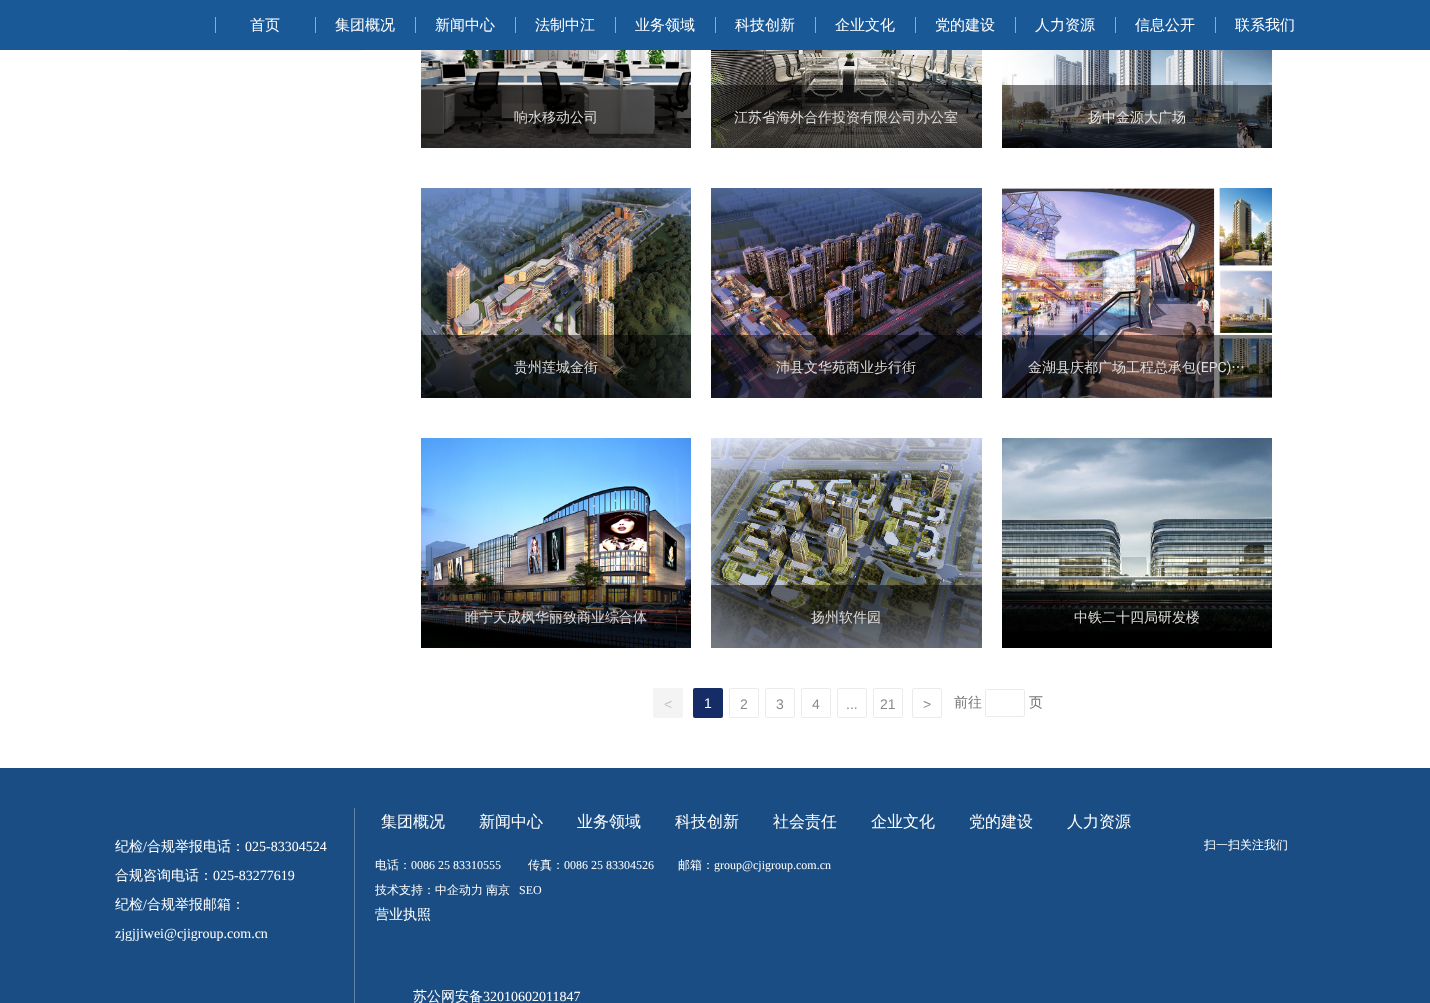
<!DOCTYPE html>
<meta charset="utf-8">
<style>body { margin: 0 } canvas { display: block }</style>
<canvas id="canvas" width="1430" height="1003"></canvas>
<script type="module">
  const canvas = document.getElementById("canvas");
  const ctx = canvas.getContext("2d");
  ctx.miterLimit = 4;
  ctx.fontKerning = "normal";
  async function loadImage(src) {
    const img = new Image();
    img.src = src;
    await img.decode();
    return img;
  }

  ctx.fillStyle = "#ffffff";
  ctx.fillRect(0, 0, 1430, 1003);
  ctx.fillStyle = "#1a5997";
  ctx.fillRect(0, 0, 1430, 50);
  ctx.fillStyle = "#8daccb";
  ctx.fillRect(215, 17, 1, 16);
  ctx.font = "500 15px WenQuanYi Zen Hei";
  ctx.fillStyle = "#ffffff";
  ctx.fillText("首页", 250, 30);
  ctx.fillStyle = "#8daccb";
  ctx.fillRect(315, 17, 1, 16);
  ctx.fillStyle = "#ffffff";
  ctx.fillText("集团概况", 335, 30);
  ctx.fillStyle = "#8daccb";
  ctx.fillRect(415, 17, 1, 16);
  ctx.fillStyle = "#ffffff";
  ctx.fillText("新闻中心", 435, 30);
  ctx.fillStyle = "#8daccb";
  ctx.fillRect(515, 17, 1, 16);
  ctx.fillStyle = "#ffffff";
  ctx.fillText("法制中江", 535, 30);
  ctx.fillStyle = "#8daccb";
  ctx.fillRect(615, 17, 1, 16);
  ctx.fillStyle = "#ffffff";
  ctx.fillText("业务领域", 635, 30);
  ctx.fillStyle = "#8daccb";
  ctx.fillRect(715, 17, 1, 16);
  ctx.fillStyle = "#ffffff";
  ctx.fillText("科技创新", 735, 30);
  ctx.fillStyle = "#8daccb";
  ctx.fillRect(815, 17, 1, 16);
  ctx.fillStyle = "#ffffff";
  ctx.fillText("企业文化", 835, 30);
  ctx.fillStyle = "#8daccb";
  ctx.fillRect(915, 17, 1, 16);
  ctx.fillStyle = "#ffffff";
  ctx.fillText("党的建设", 935, 30);
  ctx.fillStyle = "#8daccb";
  ctx.fillRect(1015, 17, 1, 16);
  ctx.fillStyle = "#ffffff";
  ctx.fillText("人力资源", 1035, 30);
  ctx.fillStyle = "#8daccb";
  ctx.fillRect(1115, 17, 1, 16);
  ctx.fillStyle = "#ffffff";
  ctx.fillText("信息公开", 1135, 30);
  ctx.fillStyle = "#8daccb";
  ctx.fillRect(1215, 17, 1, 16);
  ctx.fillStyle = "#ffffff";
  ctx.fillText("联系我们", 1235, 30);
  ctx.fillStyle = "#f5f5f5";
  ctx.fillRect(128, 50, 235, 1);
  ctx.fillStyle = "#e9e9e9";
  ctx.fillRect(322, 50, 1, 1);
  ctx.drawImage(await loadImage("img1.png"), 421, 50, 270, 98);
  ctx.fillStyle = "rgba(0, 0, 0, 0.5)";
  ctx.fillRect(421, 85, 270, 63);
  ctx.font = "500 14px WenQuanYi Zen Hei";
  ctx.fillStyle = "#dedddd";
  ctx.fillText("响水移动公司", 514, 122);
  ctx.drawImage(await loadImage("img2.png"), 711, 50, 271, 98);
  ctx.fillStyle = "rgba(0, 0, 0, 0.5)";
  ctx.fillRect(711, 85, 271, 63);
  ctx.fillStyle = "#dedddd";
  ctx.fillText("江苏省海外合作投资有限公司办公室", 734, 122);
  ctx.drawImage(await loadImage("img3.png"), 1002, 50, 270, 98);
  ctx.fillStyle = "rgba(0, 0, 0, 0.5)";
  ctx.fillRect(1002, 85, 270, 63);
  ctx.fillStyle = "#e5e4e4";
  ctx.fillText("扬中金源大广场", 1088, 122);
  ctx.drawImage(await loadImage("img4.png"), 421, 188, 270, 210);
  ctx.fillStyle = "rgba(0, 0, 0, 0.5)";
  ctx.fillRect(421, 335, 270, 63);
  ctx.fillStyle = "#dedddd";
  ctx.fillText("贵州莲城金街", 514, 372);
  ctx.drawImage(await loadImage("img5.png"), 711, 188, 271, 210);
  ctx.fillStyle = "rgba(0, 0, 0, 0.5)";
  ctx.fillRect(711, 335, 271, 63);
  ctx.fillStyle = "#dedddd";
  ctx.fillText("沛县文华苑商业步行街", 776, 372);
  ctx.drawImage(await loadImage("img6.png"), 1002, 188, 270, 210);
  ctx.fillStyle = "rgba(0, 0, 0, 0.5)";
  ctx.fillRect(1002, 335, 270, 63);
  ctx.fillStyle = "#dedddd";
  ctx.fillText("金湖县庆都广场工程总承包", 1028, 372);
  ctx.font = "14px Roboto";
  ctx.fillText("(EPC)", 1196, 372);
  ctx.font = "500 14px WenQuanYi Zen Hei";
  ctx.fillText("…", 1231, 372);
  ctx.drawImage(await loadImage("img7.png"), 421, 438, 270, 210);
  ctx.fillStyle = "rgba(0, 0, 0, 0.5)";
  ctx.fillRect(421, 585, 270, 63);
  ctx.fillStyle = "#dedddd";
  ctx.fillText("睢宁天成枫华丽致商业综合体", 465, 622);
  ctx.drawImage(await loadImage("img8.png"), 711, 438, 271, 210);
  ctx.fillStyle = "rgba(0, 0, 0, 0.5)";
  ctx.fillRect(711, 585, 271, 63);
  ctx.fillStyle = "#dedddd";
  ctx.fillText("扬州软件园", 811, 622);
  ctx.drawImage(await loadImage("img9.png"), 1002, 438, 270, 210);
  ctx.fillStyle = "rgba(0, 0, 0, 0.5)";
  ctx.fillRect(1002, 585, 270, 46);
  ctx.fillStyle = "#dedddd";
  ctx.fillText("中铁二十四局研发楼", 1074, 622);
  ctx.fillStyle = "#f4f4f5";
  ctx.beginPath();
  ctx.roundRect(653, 688, 30, 30, 2);
  ctx.fill();
  ctx.font = "14px Liberation Sans";
  ctx.fillStyle = "#c0c4cc";
  ctx.fillText("<", 664, 709);
  ctx.fillStyle = "#162c66";
  ctx.beginPath();
  ctx.roundRect(693, 688, 30, 30, 2);
  ctx.fill();
  ctx.fillStyle = "#ffffff";
  ctx.fillText("1", 704, 708);
  ctx.beginPath();
  ctx.roundRect(729.5, 688.5, 29, 29, 1.5);
  ctx.strokeStyle = "#ebebeb";
  ctx.stroke();
  ctx.fillStyle = "#8a8a8a";
  ctx.fillText("2", 740, 709);
  ctx.beginPath();
  ctx.roundRect(765.5, 688.5, 29, 29, 1.5);
  ctx.stroke();
  ctx.fillText("3", 776, 709);
  ctx.beginPath();
  ctx.roundRect(801.5, 688.5, 29, 29, 1.5);
  ctx.stroke();
  ctx.fillText("4", 812, 709);
  ctx.beginPath();
  ctx.roundRect(837.5, 688.5, 29, 29, 1.5);
  ctx.stroke();
  ctx.fillText("...", 846, 709);
  ctx.beginPath();
  ctx.roundRect(873.5, 688.5, 29, 29, 1.5);
  ctx.stroke();
  ctx.fillText("21", 880, 709);
  ctx.beginPath();
  ctx.roundRect(912.5, 688.5, 29, 29, 1.5);
  ctx.stroke();
  ctx.fillText(">", 923, 709);
  ctx.font = "500 14px WenQuanYi Zen Hei";
  ctx.fillStyle = "#747474";
  ctx.fillText("前往", 954, 707);
  ctx.beginPath();
  ctx.roundRect(985.5, 689.5, 39, 27, 1.5);
  ctx.stroke();
  ctx.fillText("页", 1029, 707);
  ctx.fillStyle = "#1a4d83";
  ctx.fillRect(0, 768, 1430, 235);
  ctx.fillStyle = "#6184a9";
  ctx.fillRect(354, 808, 1, 195);
  ctx.fillStyle = "#ffffff";
  ctx.fillText("纪检", 115, 851);
  ctx.font = "14px Liberation Serif";
  ctx.fillText("/", 143, 851);
  ctx.font = "500 14px WenQuanYi Zen Hei";
  ctx.fillText("合规举报电话：", 147, 851);
  ctx.font = "14px Liberation Serif";
  ctx.fillText("025-83304524", 245, 851);
  ctx.font = "500 14px WenQuanYi Zen Hei";
  ctx.fillText("合规咨询电话：", 115, 880);
  ctx.font = "14px Liberation Serif";
  ctx.fillText("025-83277619", 213, 880);
  ctx.font = "500 14px WenQuanYi Zen Hei";
  ctx.fillText("纪检", 115, 909);
  ctx.font = "14px Liberation Serif";
  ctx.fillText("/", 143, 909);
  ctx.font = "500 14px WenQuanYi Zen Hei";
  ctx.fillText("合规举报邮箱：", 147, 909);
  ctx.font = "14px Liberation Serif";
  ctx.fillText("zjgjjiwei@cjigroup.com.cn", 115, 938);
  ctx.font = "500 16px WenQuanYi Zen Hei";
  ctx.fillText("集团概况", 381, 827);
  ctx.fillText("新闻中心", 479, 827);
  ctx.fillText("业务领域", 577, 827);
  ctx.fillText("科技创新", 675, 827);
  ctx.fillText("社会责任", 773, 827);
  ctx.fillText("企业文化", 871, 827);
  ctx.fillText("党的建设", 969, 827);
  ctx.fillText("人力资源", 1067, 827);
  ctx.font = "500 12px WenQuanYi Zen Hei";
  ctx.fillText("电话：", 375, 869);
  ctx.font = "12px Liberation Serif";
  ctx.fillText("0086 25 83310555", 411, 869);
  ctx.font = "500 12px WenQuanYi Zen Hei";
  ctx.fillText("传真：", 528, 869);
  ctx.font = "12px Liberation Serif";
  ctx.fillText("0086 25 83304526", 564, 869);
  ctx.font = "500 12px WenQuanYi Zen Hei";
  ctx.fillText("邮箱：", 678, 869);
  ctx.font = "12px Liberation Serif";
  ctx.fillText("group@cjigroup.com.cn", 714, 869);
  ctx.font = "500 12px WenQuanYi Zen Hei";
  ctx.fillText("技术支持：中企动力", 375, 894);
  ctx.fillText("南京", 486, 894);
  ctx.font = "12px Liberation Serif";
  ctx.fillText("SEO", 519, 894);
  ctx.font = "500 14px WenQuanYi Zen Hei";
  ctx.fillText("营业执照", 375, 919);
  ctx.fillText("苏公网安备", 413, 1001);
  ctx.font = "14px Liberation Serif";
  ctx.fillText("32010602011847", 483, 1001);
  ctx.font = "500 12px WenQuanYi Zen Hei";
  ctx.fillText("扫一扫关注我们", 1204, 849);
</script>
